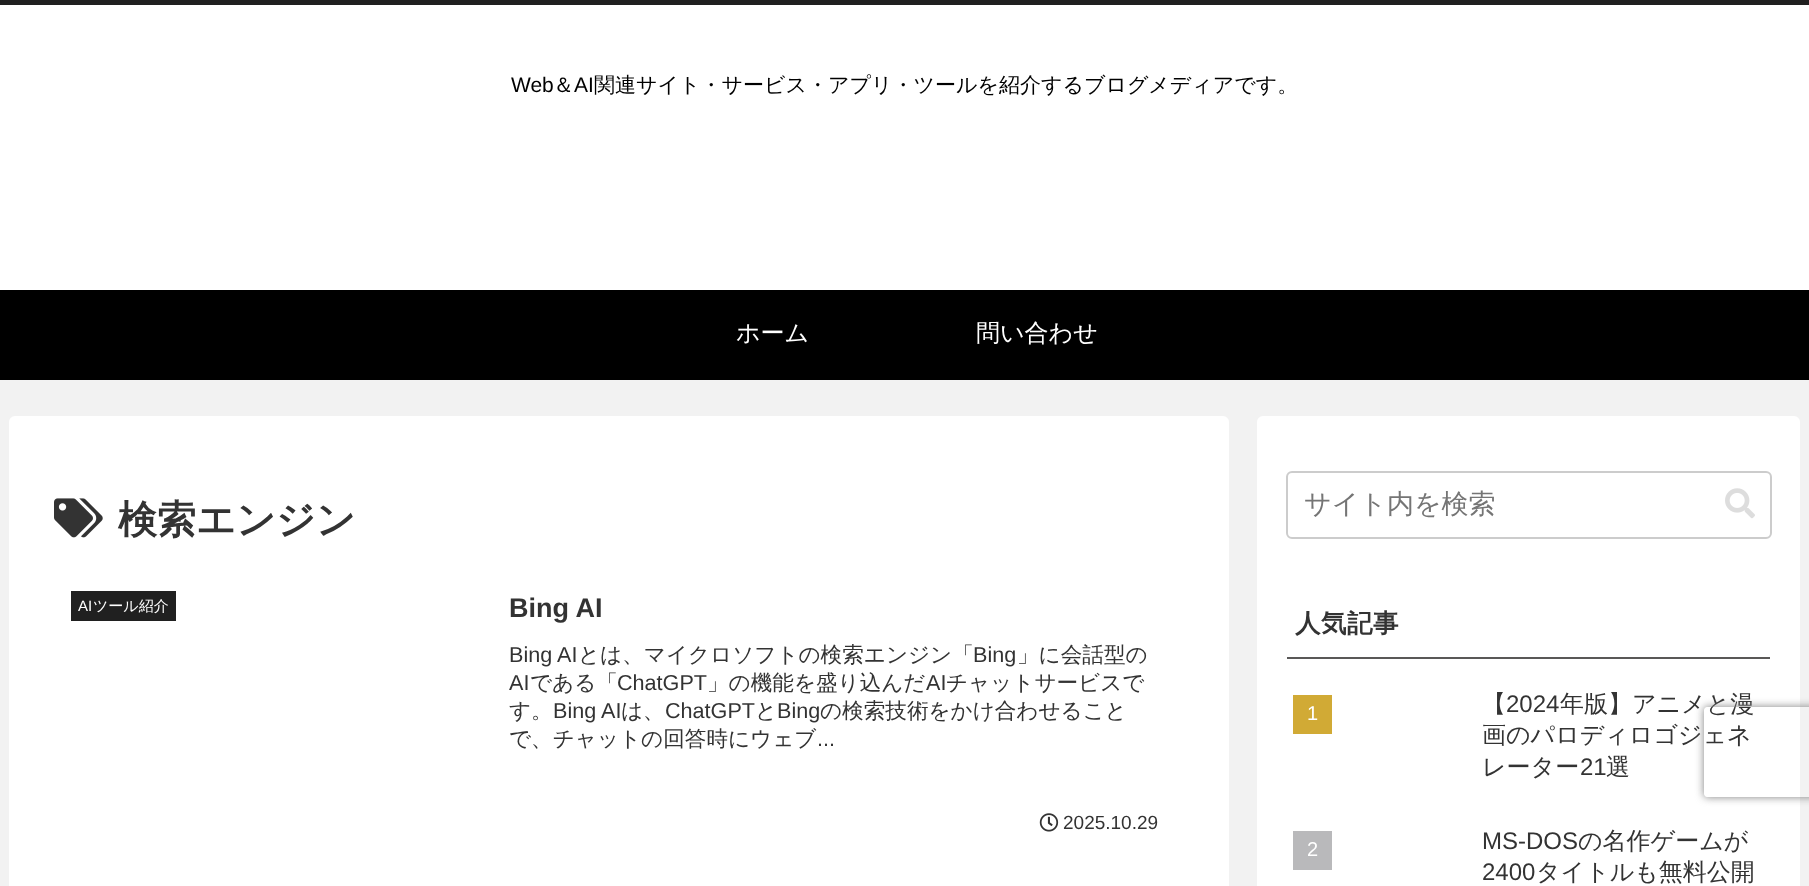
<!DOCTYPE html>
<meta charset="utf-8">
<style>body { margin: 0 } canvas { display: block }</style>
<canvas id="canvas" width="1809" height="886"></canvas>
<script type="module">
  const canvas = document.getElementById("canvas");
  const ctx = canvas.getContext("2d");
  ctx.miterLimit = 4;
  ctx.fontKerning = "normal";
  async function loadImage(src) {
    const img = new Image();
    img.src = src;
    await img.decode();
    return img;
  }

  ctx.fillStyle = "#f2f2f2";
  ctx.fillRect(0, 0, 1809, 886);
  ctx.fillStyle = "#ffffff";
  ctx.fillRect(0, 5, 1809, 285);
  ctx.fillStyle = "#202020";
  ctx.fillRect(0, 0, 1809, 5);
  ctx.font = "21px Liberation Sans";
  ctx.fillStyle = "#000000";
  ctx.fillText("Web", 511, 92);
  ctx.font = "500 21px WenQuanYi Zen Hei";
  ctx.fillText("＆", 553, 92);
  ctx.font = "21px Liberation Sans";
  ctx.fillText("AI", 574, 92);
  ctx.font = "500 21px WenQuanYi Zen Hei";
  ctx.fillText("関連サイト・サービス・アプリ・ツールを紹介するブログメディアです。", 594, 92);
  ctx.fillRect(0, 290, 1809, 90);
  ctx.font = "500 24px WenQuanYi Zen Hei";
  ctx.fillStyle = "#ffffff";
  ctx.fillText("ホーム", 736, 341);
  ctx.fillText("問い合わせ", 976, 341);
  ctx.beginPath();
  ctx.roundRect(9, 416, 1220, 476, 6);
  ctx.fill();
  ctx.drawImage(await loadImage("img1.png"), 54, 498, 49, 40);
  ctx.font = "bold 39px WenQuanYi Zen Hei";
  ctx.fillStyle = "#333333";
  ctx.fillText("検索エンジン", 118, 533);
  ctx.fillStyle = "#202020";
  ctx.fillRect(71, 591, 105, 30);
  ctx.font = "15px Liberation Sans";
  ctx.fillStyle = "#ffffff";
  ctx.fillText("AI", 78, 611);
  ctx.font = "500 15px WenQuanYi Zen Hei";
  ctx.fillText("ツール紹介", 93, 611);
  ctx.font = "bold 27px Liberation Sans";
  ctx.fillStyle = "#333333";
  ctx.fillText("Bing AI", 509, 617);
  ctx.font = "21.6px Liberation Sans";
  ctx.fillText("Bing AI", 509, 662);
  ctx.font = "500 21.6px WenQuanYi Zen Hei";
  ctx.fillText("とは、マイクロソフトの検索エンジン「", 578, 662);
  ctx.font = "21.6px Liberation Sans";
  ctx.fillText("Bing", 973, 662);
  ctx.font = "500 21.6px WenQuanYi Zen Hei";
  ctx.fillText("」に会話型の", 1017, 662);
  ctx.font = "21.6px Liberation Sans";
  ctx.fillText("AI", 509, 690);
  ctx.font = "500 21.6px WenQuanYi Zen Hei";
  ctx.fillText("である「", 530, 690);
  ctx.font = "21.6px Liberation Sans";
  ctx.fillText("ChatGPT", 617, 690);
  ctx.font = "500 21.6px WenQuanYi Zen Hei";
  ctx.fillText("」の機能を盛り込んだ", 707, 690);
  ctx.font = "21.6px Liberation Sans";
  ctx.fillText("AI", 926, 690);
  ctx.font = "500 21.6px WenQuanYi Zen Hei";
  ctx.fillText("チャットサービスで", 946, 690);
  ctx.fillText("す。", 509, 718);
  ctx.font = "21.6px Liberation Sans";
  ctx.fillText("Bing AI", 553, 718);
  ctx.font = "500 21.6px WenQuanYi Zen Hei";
  ctx.fillText("は、", 621, 718);
  ctx.font = "21.6px Liberation Sans";
  ctx.fillText("ChatGPT", 665, 718);
  ctx.font = "500 21.6px WenQuanYi Zen Hei";
  ctx.fillText("と", 755, 718);
  ctx.font = "21.6px Liberation Sans";
  ctx.fillText("Bing", 777, 718);
  ctx.font = "500 21.6px WenQuanYi Zen Hei";
  ctx.fillText("の検索技術をかけ合わせること", 820, 718);
  ctx.fillText("で、チャットの回答時にウェブ", 509, 746);
  ctx.font = "21.6px Liberation Sans";
  ctx.fillText("...", 817, 746);
  ctx.drawImage(await loadImage("img2.png"), 1039, 813, 20, 19);
  ctx.font = "19px Liberation Sans";
  ctx.fillText("2025.10.29", 1063, 829);
  ctx.fillStyle = "#ffffff";
  ctx.beginPath();
  ctx.roundRect(1257, 416, 543, 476, 6);
  ctx.fill();
  ctx.beginPath();
  ctx.roundRect(1287, 472, 484, 66, 5);
  ctx.strokeStyle = "#cccccc";
  ctx.lineWidth = 2;
  ctx.stroke();
  ctx.font = "500 27px WenQuanYi Zen Hei";
  ctx.fillStyle = "#757575";
  ctx.fillText("サイト内を検索", 1304, 513);
  ctx.drawImage(await loadImage("img3.png"), 1725, 488, 30, 31);
  ctx.fillStyle = "#595857";
  ctx.fillRect(1287, 657, 483, 2);
  ctx.letterSpacing = "0.5px";
  ctx.font = "bold 25.5px WenQuanYi Zen Hei";
  ctx.fillStyle = "#333333";
  ctx.fillText("人気記事", 1295, 632);
  ctx.fillStyle = "#d1aa35";
  ctx.fillRect(1293, 695, 39, 39);
  ctx.letterSpacing = "0px";
  ctx.font = "20px Liberation Sans";
  ctx.fillStyle = "#ffffff";
  ctx.fillText("1", 1307, 720);
  ctx.font = "500 24px WenQuanYi Zen Hei";
  ctx.fillStyle = "#333333";
  ctx.fillText("【", 1482, 712);
  ctx.font = "24px Liberation Sans";
  ctx.fillText("2024", 1506, 712);
  ctx.font = "500 24px WenQuanYi Zen Hei";
  ctx.fillText("年版】アニメと漫", 1560, 712);
  ctx.fillText("画のパロディロゴジェネ", 1482, 743);
  ctx.fillText("レーター", 1482, 775);
  ctx.font = "24px Liberation Sans";
  ctx.fillText("21", 1580, 775);
  ctx.font = "500 24px WenQuanYi Zen Hei";
  ctx.fillText("選", 1606, 775);
  ctx.fillStyle = "#b9b9bb";
  ctx.fillRect(1293, 831, 39, 39);
  ctx.font = "20px Liberation Sans";
  ctx.fillStyle = "#ffffff";
  ctx.fillText("2", 1307, 856);
  ctx.font = "24px Liberation Sans";
  ctx.fillStyle = "#333333";
  ctx.fillText("MS-DOS", 1482, 849);
  ctx.font = "500 24px WenQuanYi Zen Hei";
  ctx.fillText("の名作ゲームが", 1578, 849);
  ctx.font = "24px Liberation Sans";
  ctx.fillText("2400", 1482, 880);
  ctx.font = "500 24px WenQuanYi Zen Hei";
  ctx.fillText("タイトルも無料公開", 1536, 880);
  ctx.save();
  ctx.beginPath();
  ctx.moveTo(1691, 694);
  ctx.lineTo(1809, 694);
  ctx.lineTo(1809, 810);
  ctx.lineTo(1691, 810);
  ctx.closePath();
  ctx.moveTo(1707, 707);
  ctx.lineTo(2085, 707);
  ctx.bezierCurveTo(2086.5, 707, 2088, 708.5, 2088, 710);
  ctx.lineTo(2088, 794);
  ctx.bezierCurveTo(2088, 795.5, 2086.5, 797, 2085, 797);
  ctx.lineTo(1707, 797);
  ctx.bezierCurveTo(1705.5, 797, 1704, 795.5, 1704, 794);
  ctx.lineTo(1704, 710);
  ctx.bezierCurveTo(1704, 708.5, 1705.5, 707, 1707, 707);
  ctx.closePath();
  ctx.clip("evenodd");
  ctx.fillStyle = "#808080";
  ctx.filter = "blur(4px)";
  ctx.beginPath();
  ctx.roundRect(1704, 707, 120, 90, 3);
  ctx.fill();
  ctx.filter = "none";
  ctx.restore();
</script>
